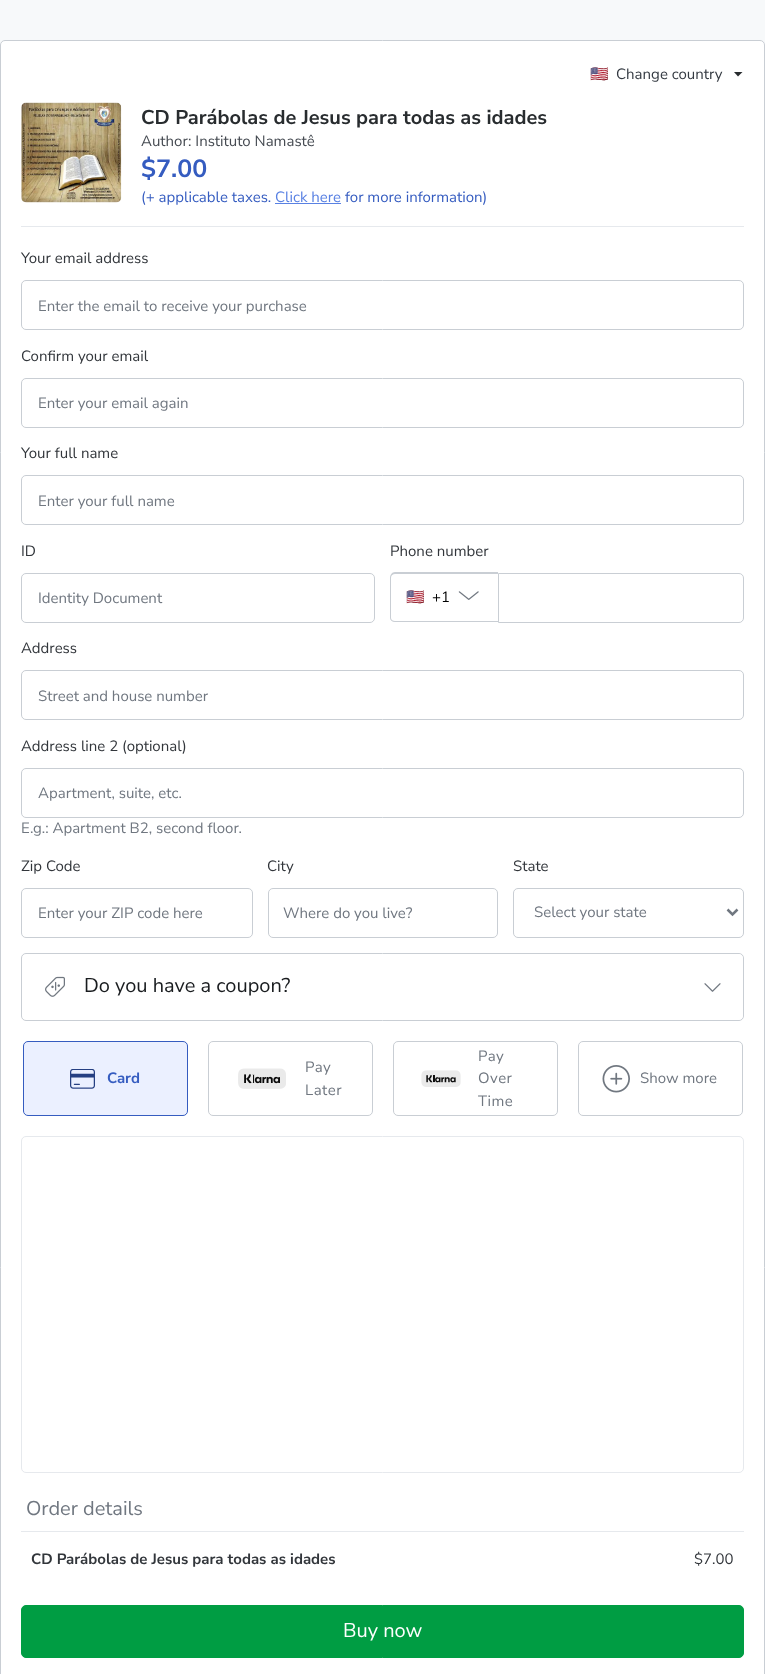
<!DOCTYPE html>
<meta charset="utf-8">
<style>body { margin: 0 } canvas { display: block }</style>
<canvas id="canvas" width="765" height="1674"></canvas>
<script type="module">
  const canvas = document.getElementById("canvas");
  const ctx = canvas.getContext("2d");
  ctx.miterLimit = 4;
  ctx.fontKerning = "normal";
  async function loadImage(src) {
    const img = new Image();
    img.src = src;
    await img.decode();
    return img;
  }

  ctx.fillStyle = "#f7f9fa";
  ctx.fillRect(0, 0, 765, 1674);
  ctx.fillStyle = "#ffffff";
  ctx.beginPath();
  ctx.roundRect(0.5, 40.5, 764, 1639, 4.5);
  ctx.fill();
  ctx.strokeStyle = "#c9ced4";
  ctx.stroke();
  ctx.font = "15px Noto Color Emoji";
  ctx.fillStyle = "#343a42";
  ctx.fillText("🇺🇸", 590, 79);
  ctx.font = "15px Nunito Sans";
  ctx.fillText("Change country", 616, 79);
  ctx.fillStyle = "#282c2f";
  ctx.beginPath();
  ctx.moveTo(734, 72);
  ctx.lineTo(738, 76.5);
  ctx.lineTo(742.5, 72);
  ctx.closePath();
  ctx.fill("evenodd");
  ctx.drawImage(await loadImage("img1.png"), 21, 102, 101, 101);
  ctx.font = "bold 20px Nunito Sans";
  ctx.fillText("CD Parábolas de Jesus para todas as idades", 141, 124);
  ctx.font = "15px Nunito Sans";
  ctx.fillStyle = "#464b52";
  ctx.fillText("Author: Instituto Namastê", 141, 146);
  ctx.font = "bold 25px Nunito Sans";
  ctx.fillStyle = "#355cc0";
  ctx.fillText("$7.00", 141, 177);
  ctx.font = "15px Nunito Sans";
  ctx.fillText("(+ applicable taxes.", 141, 202);
  ctx.fillStyle = "#5981e3";
  ctx.fillText("Click here", 275, 202);
  ctx.fillRect(275, 203, 66, 1);
  ctx.fillStyle = "#355cc0";
  ctx.fillText("for more information)", 345, 202);
  ctx.fillStyle = "#e6e9ed";
  ctx.fillRect(21, 226, 723, 1);
  ctx.fillStyle = "#32363b";
  ctx.fillText("Your email address", 21, 263);
  ctx.beginPath();
  ctx.roundRect(21.5, 280.5, 722, 49, 4.5);
  ctx.stroke();
  ctx.fillStyle = "#707780";
  ctx.fillText("Enter the email to receive your purchase", 38, 311);
  ctx.fillStyle = "#32363b";
  ctx.fillText("Confirm your email", 21, 361);
  ctx.beginPath();
  ctx.roundRect(21.5, 378.5, 722, 49, 4.5);
  ctx.stroke();
  ctx.fillStyle = "#707780";
  ctx.fillText("Enter your email again", 38, 408);
  ctx.fillStyle = "#32363b";
  ctx.fillText("Your full name", 21, 458);
  ctx.beginPath();
  ctx.roundRect(21.5, 475.5, 722, 49, 4.5);
  ctx.stroke();
  ctx.fillStyle = "#707780";
  ctx.fillText("Enter your full name", 38, 506);
  ctx.fillStyle = "#32363b";
  ctx.fillText("ID", 21, 556);
  ctx.beginPath();
  ctx.roundRect(21.5, 573.5, 353, 49, 4.5);
  ctx.stroke();
  ctx.fillStyle = "#707780";
  ctx.fillText("Identity Document", 38, 603);
  ctx.fillStyle = "#32363b";
  ctx.fillText("Phone number", 390, 556);
  ctx.fillStyle = "#c9ced4";
  ctx.beginPath();
  ctx.moveTo(395, 572);
  ctx.lineTo(498, 572);
  ctx.lineTo(498, 622);
  ctx.lineTo(395, 622);
  ctx.bezierCurveTo(392, 622, 390, 620, 390, 618);
  ctx.lineTo(390, 578);
  ctx.bezierCurveTo(390, 575, 392, 572, 395, 572);
  ctx.closePath();
  ctx.moveTo(395, 574);
  ctx.lineTo(498, 574);
  ctx.lineTo(498, 621);
  ctx.lineTo(395, 621);
  ctx.bezierCurveTo(393, 621, 391, 620, 391, 618);
  ctx.lineTo(391, 578);
  ctx.bezierCurveTo(391, 575, 393, 574, 395, 574);
  ctx.closePath();
  ctx.fill("evenodd");
  ctx.font = "15px Noto Color Emoji";
  ctx.fillStyle = "#000000";
  ctx.fillText("🇺🇸", 406, 602);
  ctx.font = "15px Nunito Sans";
  ctx.fillText("+1", 432, 602);
  ctx.drawImage(await loadImage("img2.png"), 458, 591, 21, 9);
  ctx.beginPath();
  ctx.roundRect(498.5, 573.5, 245, 49, [0, 4.5, 4.5, 0]);
  ctx.stroke();
  ctx.fillStyle = "#32363b";
  ctx.fillText("Address", 21, 653);
  ctx.beginPath();
  ctx.roundRect(21.5, 670.5, 722, 49, 4.5);
  ctx.stroke();
  ctx.fillStyle = "#707780";
  ctx.fillText("Street and house number", 38, 701);
  ctx.fillStyle = "#32363b";
  ctx.fillText("Address line 2 (optional)", 21, 751);
  ctx.beginPath();
  ctx.roundRect(21.5, 768.5, 722, 49, 4.5);
  ctx.stroke();
  ctx.fillStyle = "#707780";
  ctx.fillText("Apartment, suite, etc.", 38, 798);
  ctx.fillText("E.g.: Apartment B2, second floor.", 21, 833);
  ctx.fillStyle = "#32363b";
  ctx.fillText("Zip Code", 21, 871);
  ctx.beginPath();
  ctx.roundRect(21.5, 888.5, 231, 49, 4.5);
  ctx.stroke();
  ctx.fillStyle = "#707780";
  ctx.fillText("Enter your ZIP code here", 38, 918);
  ctx.fillStyle = "#32363b";
  ctx.fillText("City", 267, 871);
  ctx.beginPath();
  ctx.roundRect(268.5, 888.5, 229, 49, 4.5);
  ctx.stroke();
  ctx.fillStyle = "#707780";
  ctx.fillText("Where do you live?", 283, 918);
  ctx.fillStyle = "#32363b";
  ctx.fillText("State", 513, 871);
  ctx.beginPath();
  ctx.roundRect(513.5, 888.5, 230, 49, 4.5);
  ctx.stroke();
  ctx.beginPath();
  ctx.moveTo(727.5, 909.5);
  ctx.lineTo(732.5, 914.5);
  ctx.lineTo(737.5, 909.5);
  ctx.strokeStyle = "#707780";
  ctx.lineWidth = 2.5;
  ctx.stroke();
  ctx.fillStyle = "#707780";
  ctx.fillText("Select your state", 534, 917);
  ctx.beginPath();
  ctx.roundRect(21.5, 953.5, 722, 67, 4.5);
  ctx.strokeStyle = "#c9ced4";
  ctx.lineWidth = 1;
  ctx.stroke();
  ctx.fillStyle = "#ffffff";
  ctx.beginPath();
  ctx.roundRect(23, 954, 720, 66, 5);
  ctx.fill();
  ctx.drawImage(await loadImage("img3.png"), 45, 976, 20, 21);
  ctx.font = "20px Nunito Sans";
  ctx.fillStyle = "#191c1f";
  ctx.fillText("Do you have a coupon?", 84, 992);
  ctx.drawImage(await loadImage("img4.png"), 704, 983, 17, 9);
  ctx.fillStyle = "#ebf0ff";
  ctx.beginPath();
  ctx.roundRect(23.5, 1041.5, 164, 74, 4.5);
  ctx.fill();
  ctx.strokeStyle = "#355cc0";
  ctx.stroke();
  ctx.drawImage(await loadImage("img5.png"), 70, 1069, 25, 20);
  ctx.font = "bold 15px Nunito Sans";
  ctx.fillStyle = "#355cc0";
  ctx.fillText("Card", 107, 1083);
  ctx.beginPath();
  ctx.roundRect(208.5, 1041.5, 164, 74, 4.5);
  ctx.strokeStyle = "#c9ced4";
  ctx.stroke();
  ctx.drawImage(await loadImage("img6.png"), 238, 1068, 48, 21);
  ctx.letterSpacing = "0.5px";
  ctx.font = "15px Nunito Sans";
  ctx.fillStyle = "#707780";
  ctx.fillText("Pay", 305, 1072);
  ctx.fillText("Later", 305, 1095);
  ctx.beginPath();
  ctx.roundRect(393.5, 1041.5, 164, 74, 4.5);
  ctx.stroke();
  ctx.drawImage(await loadImage("img7.png"), 421, 1070, 40, 17);
  ctx.fillText("Pay", 478, 1061);
  ctx.fillText("Over", 478, 1083);
  ctx.fillText("Time", 478, 1106);
  ctx.beginPath();
  ctx.roundRect(578.5, 1041.5, 164, 74, 4.5);
  ctx.stroke();
  ctx.drawImage(await loadImage("img8.png"), 602, 1065, 28, 28);
  ctx.letterSpacing = "0px";
  ctx.fillText("Show more", 640, 1083);
  ctx.beginPath();
  ctx.roundRect(21.5, 1136.5, 722, 336, 4.5);
  ctx.strokeStyle = "#e6e9ed";
  ctx.stroke();
  ctx.fillStyle = "#e6e9ed";
  ctx.fillRect(21, 1531, 723, 1);
  ctx.font = "20px Nunito Sans";
  ctx.fillStyle = "#707780";
  ctx.fillText("Order details", 26, 1515);
  ctx.font = "bold 15px Nunito Sans";
  ctx.fillStyle = "#32363b";
  ctx.fillText("CD Parábolas de Jesus para todas as idades", 31, 1564);
  ctx.font = "15px Nunito Sans";
  ctx.fillText("$7.00", 694, 1564);
  ctx.fillStyle = "#009d43";
  ctx.beginPath();
  ctx.roundRect(21.5, 1605.5, 722, 52, 4.5);
  ctx.fill();
  ctx.strokeStyle = "#009d43";
  ctx.stroke();
  ctx.font = "20px Nunito Sans";
  ctx.fillStyle = "#ffffff";
  ctx.fillText("Buy now", 343, 1637);
</script>
